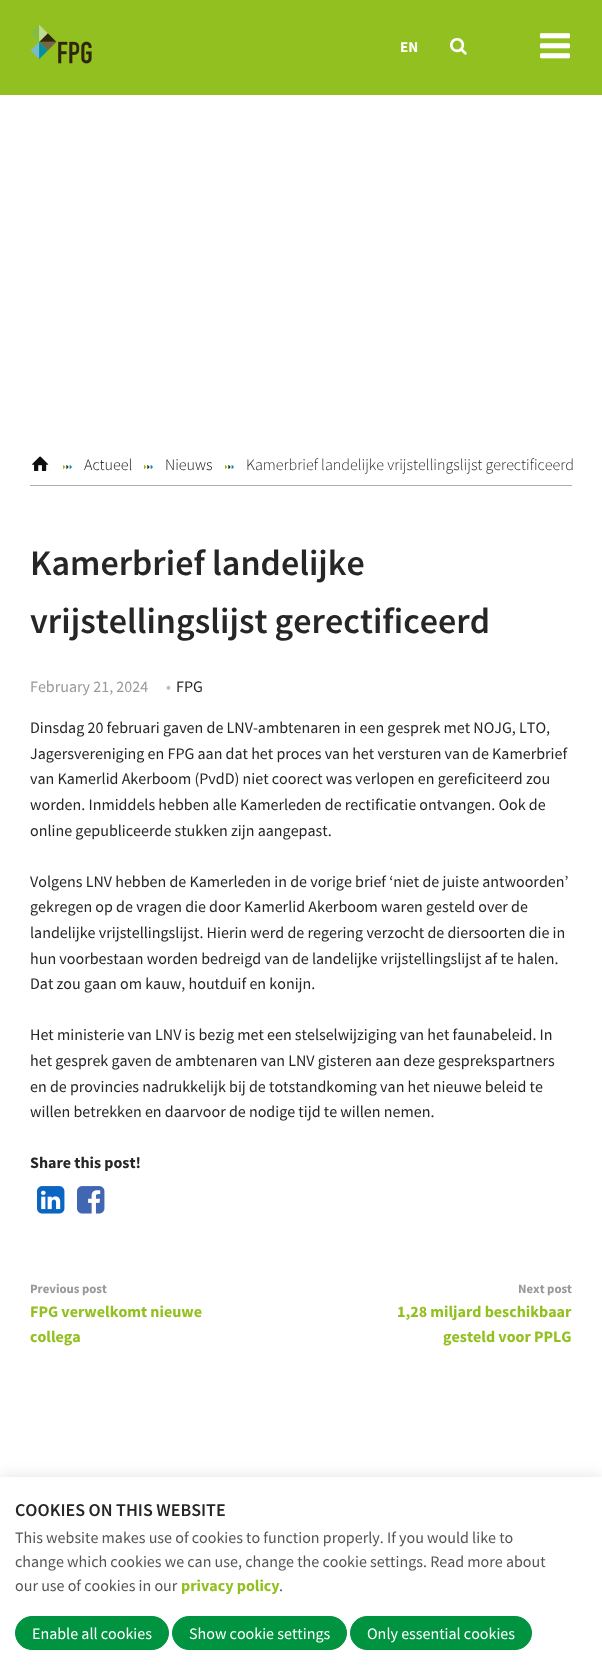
<!DOCTYPE html>
<meta charset="utf-8">
<style>body { margin: 0 } canvas { display: block }</style>
<canvas id="canvas" width="602" height="1673"></canvas>
<script type="module">
  const canvas = document.getElementById("canvas");
  const ctx = canvas.getContext("2d");
  ctx.miterLimit = 4;
  ctx.fontKerning = "none";
  async function loadImage(src) {
    const img = new Image();
    img.src = src;
    await img.decode();
    return img;
  }

  ctx.fillStyle = "#ffffff";
  ctx.fillRect(0, 0, 602, 1673);
  ctx.fillStyle = "#92c020";
  ctx.fillRect(0, 0, 602, 95);
  ctx.drawImage(await loadImage("img1.png"), 30, 24, 62, 40);
  ctx.font = "bold 15px Source Sans Pro";
  ctx.fillStyle = "#ffffff";
  ctx.fillText("EN", 400, 52);
  ctx.font = "18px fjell";
  ctx.fillText("🔎", 450, 52);
  ctx.font = "35px fjell";
  ctx.fillText("☰", 540, 58);
  ctx.fillStyle = "#acacac";
  ctx.fillRect(30, 485, 542, 1);
  ctx.font = "18px fjell";
  ctx.fillStyle = "#0e0e0e";
  ctx.fillText("⌂", 32, 470);
  ctx.drawImage(await loadImage("img2.png"), 63, 465, 9, 4);
  ctx.font = "300 16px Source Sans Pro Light";
  ctx.fillText("Actueel", 84, 470);
  ctx.drawImage(await loadImage("img2.png"), 144, 465, 9, 4);
  ctx.fillText("Nieuws", 165, 470);
  ctx.drawImage(await loadImage("img2.png"), 225, 465, 9, 4);
  ctx.fillStyle = "#262626";
  ctx.fillText("Kamerbrief landelijke vrijstellingslijst gerectificeerd", 246, 470);
  ctx.font = "600 36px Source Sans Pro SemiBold";
  ctx.fillText("Kamerbrief landelijke", 30, 575);
  ctx.fillText("vrijstellingslijst gerectificeerd", 30, 633);
  ctx.font = "16px Source Sans Pro";
  ctx.fillStyle = "#999999";
  ctx.fillText("February 21, 2024", 30, 692);
  ctx.fillStyle = "#bbbbbb";
  ctx.fillText("•", 166, 692);
  ctx.fillStyle = "#262626";
  ctx.fillText("FPG", 176, 692);
  ctx.fillText("Dinsdag 20 februari gaven de LNV-ambtenaren in een gesprek met NOJG, LTO,", 30, 733);
  ctx.fillText("Jagersvereniging en FPG aan dat het proces van het versturen van de Kamerbrief", 30, 759);
  ctx.fillText("van Kamerlid Akerboom (PvdD) niet coorect was verlopen en gereficiteerd zou", 30, 784);
  ctx.fillText("worden. Inmiddels hebben alle Kamerleden de rectificatie ontvangen. Ook de", 30, 810);
  ctx.fillText("online gepubliceerde stukken zijn aangepast.", 30, 836);
  ctx.fillText("Volgens LNV hebben de Kamerleden in de vorige brief ‘niet de juiste antwoorden’", 30, 887);
  ctx.fillText("gekregen op de vragen die door Kamerlid Akerboom waren gesteld over de", 30, 912);
  ctx.fillText("landelijke vrijstellingslijst. Hierin werd de regering verzocht de diersoorten die in", 30, 938);
  ctx.fillText("hun voorbestaan worden bedreigd van de landelijke vrijstellingslijst af te halen.", 30, 964);
  ctx.fillText("Dat zou gaan om kauw, houtduif en konijn.", 30, 989);
  ctx.fillText("Het ministerie van LNV is bezig met een stelselwijziging van het faunabeleid. In", 30, 1040);
  ctx.fillText("het gesprek gaven de ambtenaren van LNV gisteren aan deze gesprekspartners", 30, 1066);
  ctx.fillText("en de provincies nadrukkelijk bij de totstandkoming van het nieuwe beleid te", 30, 1092);
  ctx.fillText("willen betrekken en daarvoor de nodige tijd te willen nemen.", 30, 1117);
  ctx.font = "bold 16px Source Sans Pro";
  ctx.fillText("Share this post!", 30, 1168);
  ctx.drawImage(await loadImage("img3.png"), 37, 1186, 28, 28);
  ctx.drawImage(await loadImage("img4.png"), 77, 1186, 28, 28);
  ctx.font = "bold 12.75px Source Sans Pro";
  ctx.fillStyle = "#999999";
  ctx.fillText("Previous post", 30, 1293);
  ctx.font = "bold 16px Source Sans Pro";
  ctx.fillStyle = "#92c020";
  ctx.fillText("FPG verwelkomt nieuwe", 30, 1317);
  ctx.fillText("collega", 30, 1342);
  ctx.font = "bold 12.75px Source Sans Pro";
  ctx.fillStyle = "#999999";
  ctx.fillText("Next post", 518, 1293);
  ctx.font = "bold 16px Source Sans Pro";
  ctx.fillStyle = "#92c020";
  ctx.fillText("1,28 miljard beschikbaar", 397, 1317);
  ctx.fillText("gesteld voor PPLG", 443, 1342);
  ctx.fillStyle = "rgba(0, 0, 0, 0.2)";
  ctx.filter = "blur(10px)";
  ctx.beginPath();
  ctx.rect(0, 1482, 602, 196);
  ctx.fill();
  ctx.filter = "none";
  ctx.fillStyle = "#ffffff";
  ctx.fillRect(0, 1477, 602, 196);
  ctx.font = "600 18px Source Sans Pro SemiBold";
  ctx.fillStyle = "#262626";
  ctx.fillText("COOKIES ON THIS WEBSITE", 15, 1516);
  ctx.font = "16px Source Sans Pro";
  ctx.fillStyle = "#555555";
  ctx.fillText("This website makes use of cookies to function properly. If you would like to", 15, 1543);
  ctx.fillText("change which cookies we can use, change the cookie settings. Read more about", 15, 1567);
  ctx.fillText("our use of cookies in our", 15, 1591);
  ctx.font = "bold 16px Source Sans Pro";
  ctx.fillStyle = "#92c020";
  ctx.fillText("privacy policy", 181, 1591);
  ctx.font = "16px Source Sans Pro";
  ctx.fillStyle = "#555555";
  ctx.fillText(".", 279, 1591);
  ctx.fillStyle = "#009440";
  ctx.beginPath();
  ctx.roundRect(15.5, 1616.5, 153, 33, 16.5);
  ctx.fill();
  ctx.strokeStyle = "#009440";
  ctx.stroke();
  ctx.fillStyle = "#ffffff";
  ctx.fillText("Enable all cookies", 32, 1639);
  ctx.fillStyle = "#009440";
  ctx.beginPath();
  ctx.roundRect(172.5, 1616.5, 174, 33, 16.5);
  ctx.fill();
  ctx.stroke();
  ctx.fillStyle = "#ffffff";
  ctx.fillText("Show cookie settings", 189, 1639);
  ctx.fillStyle = "#009440";
  ctx.beginPath();
  ctx.roundRect(350.5, 1616.5, 181, 33, 16.5);
  ctx.fill();
  ctx.stroke();
  ctx.fillStyle = "#ffffff";
  ctx.fillText("Only essential cookies", 367, 1639);
</script>
